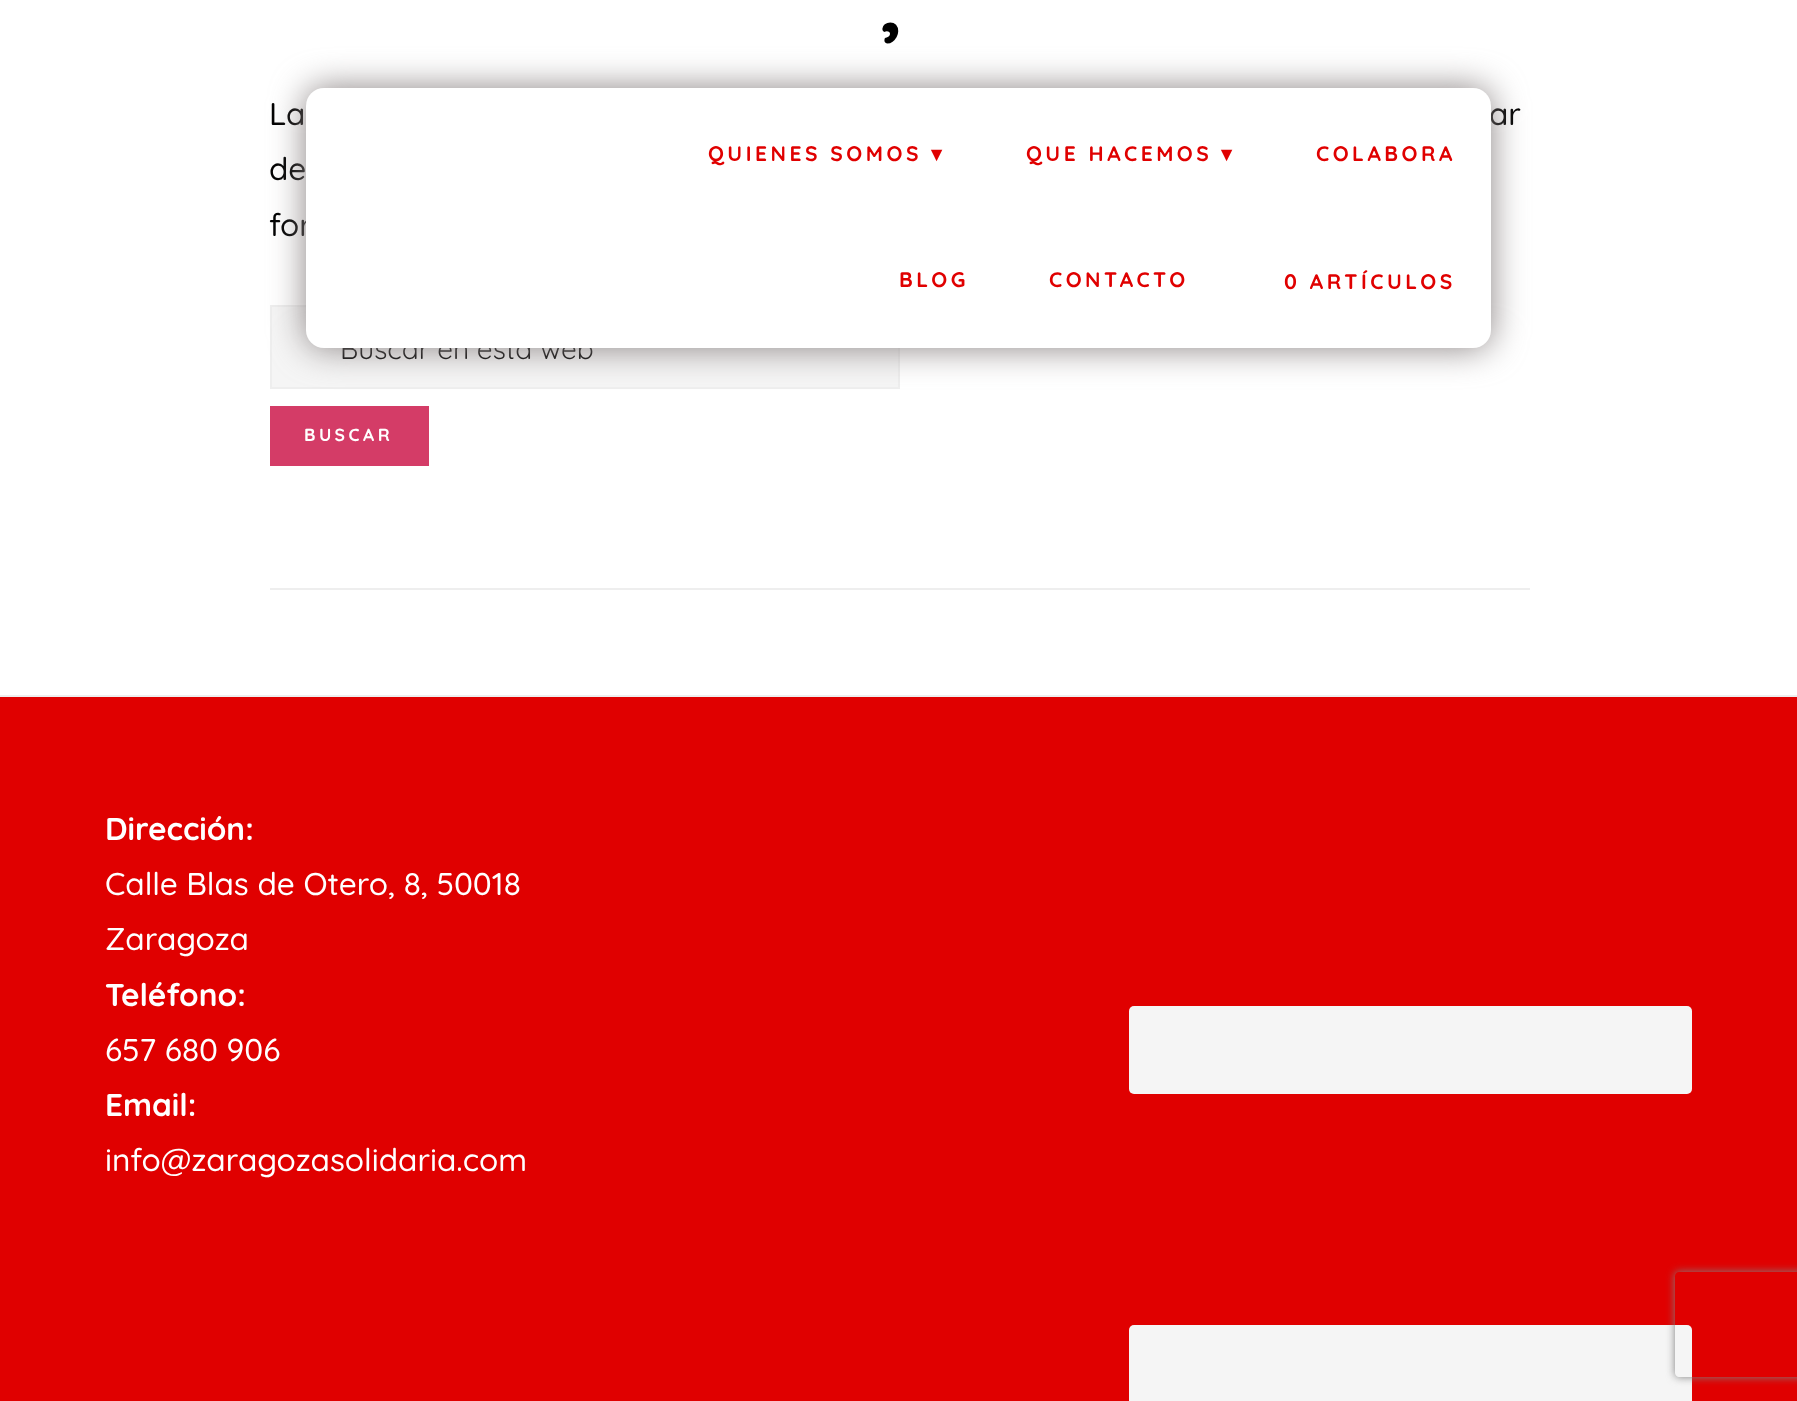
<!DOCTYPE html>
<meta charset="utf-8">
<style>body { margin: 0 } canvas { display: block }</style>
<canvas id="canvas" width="1797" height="1401"></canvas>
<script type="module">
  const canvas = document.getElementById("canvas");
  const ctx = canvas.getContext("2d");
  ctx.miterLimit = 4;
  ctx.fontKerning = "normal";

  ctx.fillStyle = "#ffffff";
  ctx.fillRect(0, 0, 1797, 1401);
  ctx.fillStyle = "#eeeeee";
  ctx.fillRect(270, 588, 1260, 2);
  ctx.font = "bold 84px Quicksand";
  ctx.fillStyle = "#000000";
  ctx.fillText(",", 880, 32);
  ctx.font = "500 31.5px Quicksand";
  ctx.fillText("La", 269, 125);
  ctx.fillText("ar", 1489, 125);
  ctx.fillText("de", 269, 180);
  ctx.fillText("for", 269, 236);
  ctx.fillStyle = "#f5f5f5";
  ctx.beginPath();
  ctx.rect(271, 306, 628, 82);
  ctx.fill();
  ctx.strokeStyle = "#eeeeee";
  ctx.lineWidth = 2;
  ctx.stroke();
  ctx.font = "28px Quicksand";
  ctx.fillStyle = "#000000";
  ctx.fillText("Buscar en esta web", 340, 359);
  ctx.fillStyle = "#d43c67";
  ctx.fillRect(270, 406, 159, 60);
  ctx.letterSpacing = "3.5px";
  ctx.font = "bold 17.5px Quicksand";
  ctx.fillStyle = "#ffffff";
  ctx.fillText("BUSCAR", 304, 441);
  ctx.fillStyle = "#898282";
  ctx.filter = "blur(17.5px)";
  ctx.beginPath();
  ctx.roundRect(306, 88, 1185, 260, 18);
  ctx.fill();
  ctx.filter = "none";
  ctx.fillStyle = "#ffffff";
  ctx.beginPath();
  ctx.roundRect(306, 88, 1185, 260, 18);
  ctx.fill();
  ctx.font = "bold 21px Quicksand";
  ctx.fillStyle = "#e00000";
  ctx.fillText("QUIENES SOMOS", 708, 161);
  ctx.font = "bold 21px DejaVu Sans";
  ctx.fillText("▾", 931, 161);
  ctx.font = "bold 21px Quicksand";
  ctx.fillText("QUE HACEMOS", 1026, 161);
  ctx.font = "bold 21px DejaVu Sans";
  ctx.fillText("▾", 1221, 161);
  ctx.font = "bold 21px Quicksand";
  ctx.fillText("COLABORA", 1316, 161);
  ctx.fillText("BLOG", 899, 287);
  ctx.fillText("CONTACTO", 1049, 287);
  ctx.fillText("0 ARTÍCULOS", 1284, 289);
  ctx.fillRect(0, 697, 1797, 704);
  ctx.fillStyle = "#eeeeee";
  ctx.fillRect(0, 695, 1797, 2);
  ctx.letterSpacing = "0px";
  ctx.font = "bold 31.5px Quicksand";
  ctx.fillStyle = "#ffffff";
  ctx.fillText("Dirección:", 105, 840);
  ctx.font = "500 31.5px Quicksand";
  ctx.fillText("Calle Blas de Otero, 8, 50018", 105, 895);
  ctx.fillText("Zaragoza", 105, 950);
  ctx.font = "bold 31.5px Quicksand";
  ctx.fillText("Teléfono:", 105, 1006);
  ctx.font = "500 31.5px Quicksand";
  ctx.fillText("657 680 906", 105, 1061);
  ctx.font = "bold 31.5px Quicksand";
  ctx.fillText("Email:", 105, 1116);
  ctx.font = "500 31.5px Quicksand";
  ctx.fillText("info@zaragozasolidaria.com", 105, 1171);
  ctx.fillStyle = "#f5f5f5";
  ctx.beginPath();
  ctx.roundRect(1129, 1006, 563, 88, 5);
  ctx.fill();
  ctx.beginPath();
  ctx.roundRect(1129, 1325, 563, 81, 5);
  ctx.fill();
  ctx.save();
  ctx.beginPath();
  ctx.moveTo(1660, 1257);
  ctx.lineTo(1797, 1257);
  ctx.lineTo(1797, 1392);
  ctx.lineTo(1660, 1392);
  ctx.closePath();
  ctx.moveTo(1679, 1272);
  ctx.lineTo(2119, 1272);
  ctx.bezierCurveTo(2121, 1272, 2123, 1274, 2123, 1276);
  ctx.lineTo(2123, 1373);
  ctx.bezierCurveTo(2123, 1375, 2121, 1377, 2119, 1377);
  ctx.lineTo(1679, 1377);
  ctx.bezierCurveTo(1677, 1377, 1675, 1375, 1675, 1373);
  ctx.lineTo(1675, 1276);
  ctx.bezierCurveTo(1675, 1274, 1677, 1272, 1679, 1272);
  ctx.closePath();
  ctx.clip("evenodd");
  ctx.fillStyle = "#808080";
  ctx.filter = "blur(4.5px)";
  ctx.beginPath();
  ctx.roundRect(1675, 1272, 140, 105, 4);
  ctx.fill();
  ctx.filter = "none";
  ctx.restore();
</script>
